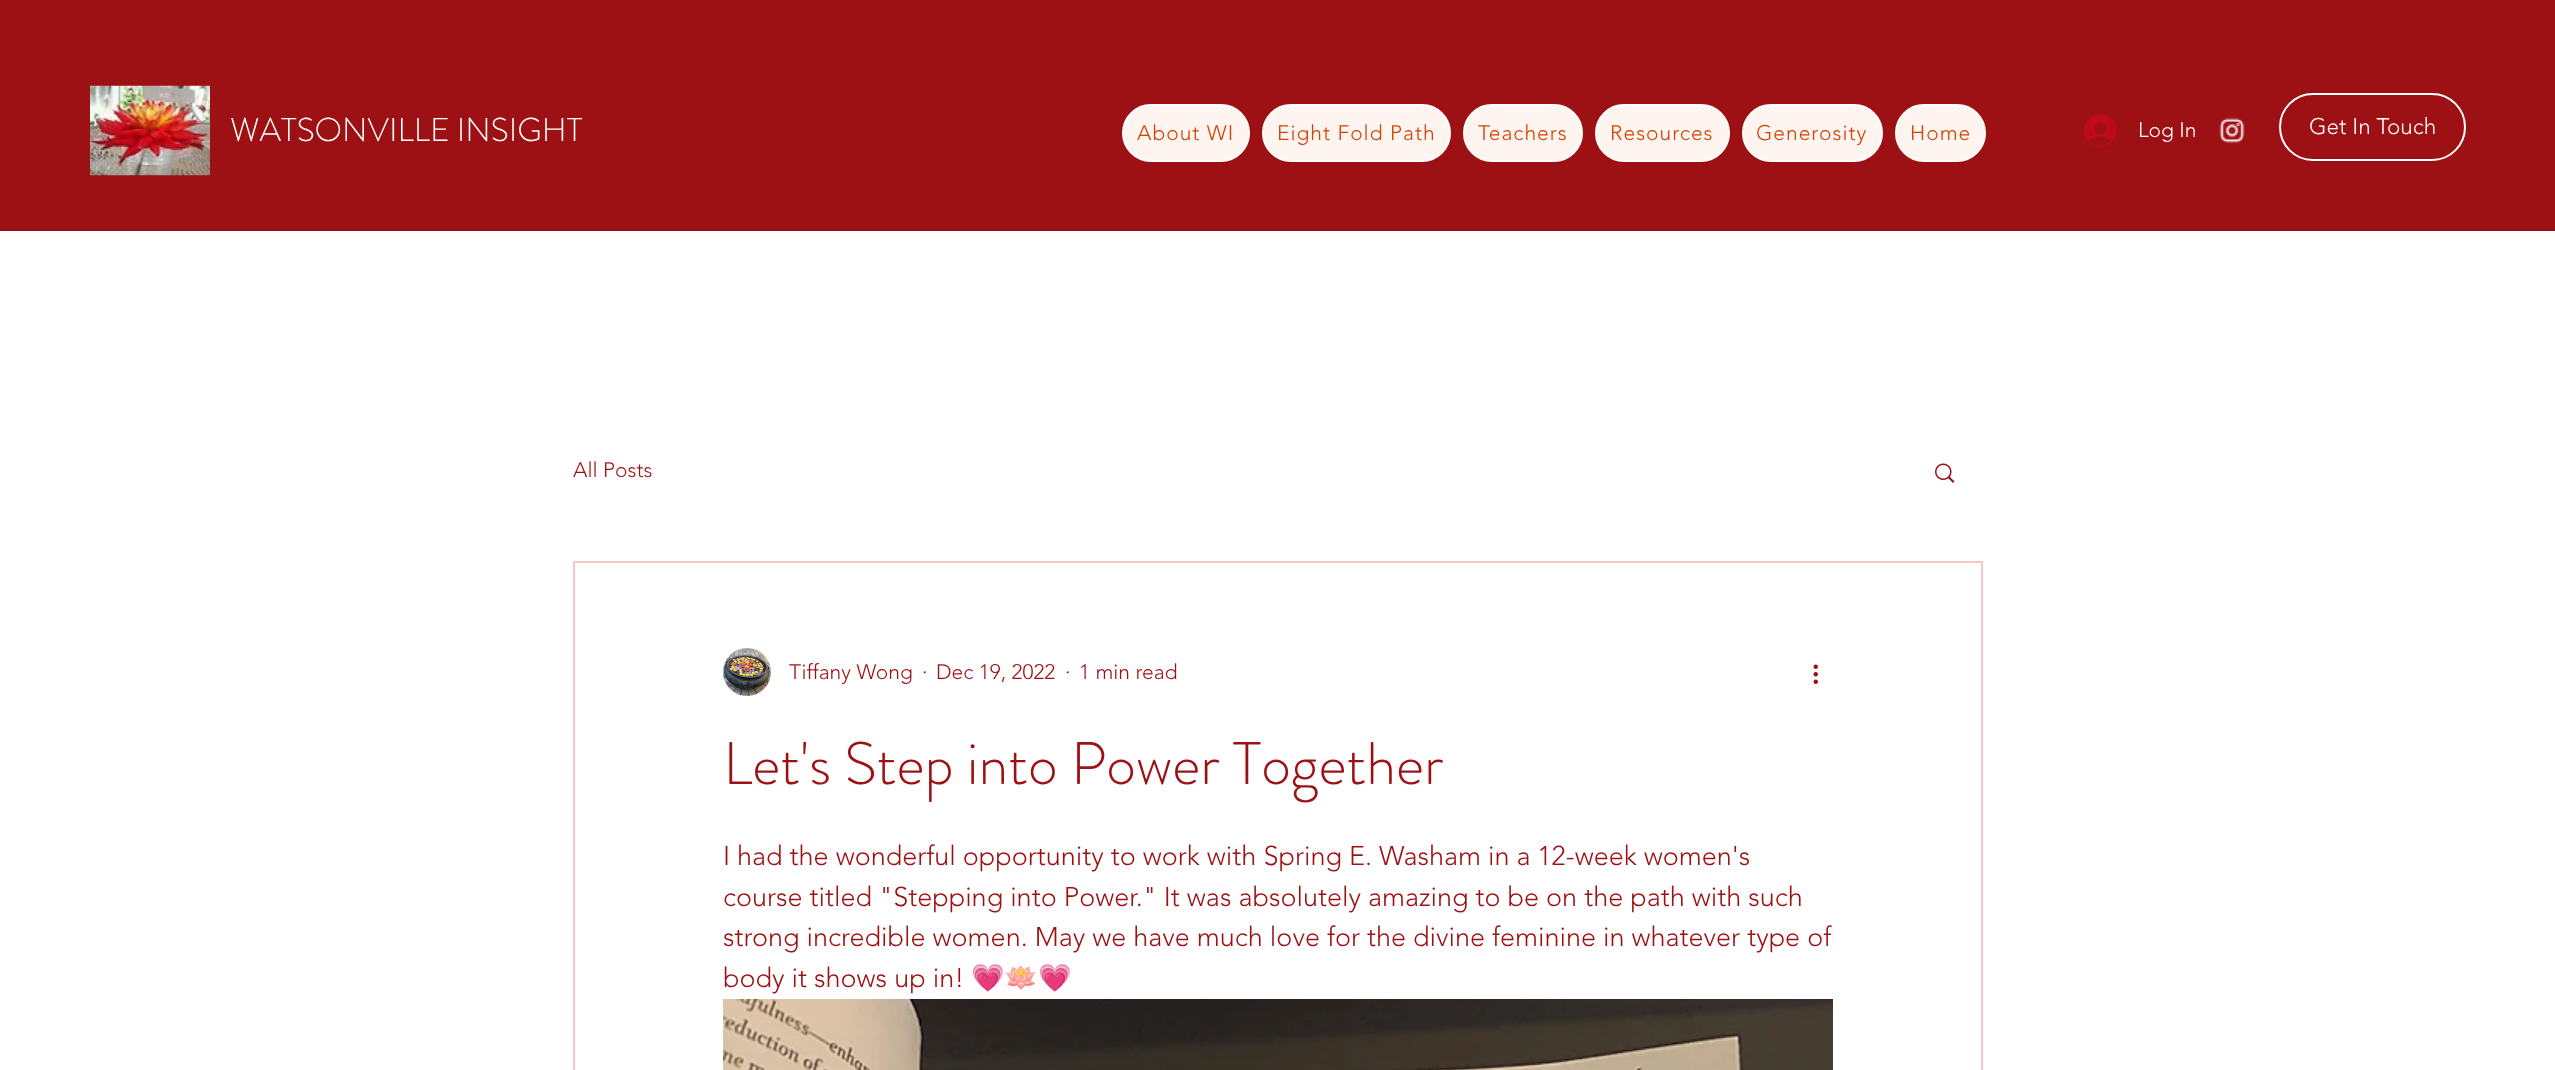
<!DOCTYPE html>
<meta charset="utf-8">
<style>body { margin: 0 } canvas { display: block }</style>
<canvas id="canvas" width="2555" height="1070"></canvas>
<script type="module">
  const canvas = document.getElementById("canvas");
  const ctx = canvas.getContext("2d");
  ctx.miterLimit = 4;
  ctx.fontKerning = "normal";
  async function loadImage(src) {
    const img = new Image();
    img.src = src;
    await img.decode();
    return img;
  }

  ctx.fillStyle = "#ffffff";
  ctx.fillRect(0, 0, 2555, 1070);
  ctx.fillStyle = "#9d1115";
  ctx.fillRect(0, 0, 2555, 231);
  ctx.drawImage(await loadImage("img1.png"), 90, 85, 120, 91);
  ctx.font = "300 33px 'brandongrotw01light'";
  ctx.fillStyle = "#ffffff";
  ctx.fillText("WATSONVILLE INSIGHT", 230, 141);
  ctx.fillStyle = "#fff5f0";
  ctx.beginPath();
  ctx.roundRect(1123, 105, 126, 56, 28);
  ctx.fill();
  ctx.strokeStyle = "#ffffff";
  ctx.lineWidth = 2;
  ctx.stroke();
  ctx.letterSpacing = "1px";
  ctx.font = "300 21px 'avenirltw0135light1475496'";
  ctx.fillStyle = "#d74000";
  ctx.fillText("About WI", 1137, 140);
  ctx.fillStyle = "#fff5f0";
  ctx.beginPath();
  ctx.roundRect(1263, 105, 187, 56, 28);
  ctx.fill();
  ctx.stroke();
  ctx.fillStyle = "#d74000";
  ctx.fillText("Eight Fold Path", 1277, 140);
  ctx.fillStyle = "#fff5f0";
  ctx.beginPath();
  ctx.roundRect(1464, 105, 118, 56, 28);
  ctx.fill();
  ctx.stroke();
  ctx.fillStyle = "#d74000";
  ctx.fillText("Teachers", 1478, 140);
  ctx.fillStyle = "#fff5f0";
  ctx.beginPath();
  ctx.roundRect(1596, 105, 133, 56, 28);
  ctx.fill();
  ctx.stroke();
  ctx.fillStyle = "#d74000";
  ctx.fillText("Resources", 1610, 140);
  ctx.fillStyle = "#fff5f0";
  ctx.beginPath();
  ctx.roundRect(1743, 105, 139, 56, 28);
  ctx.fill();
  ctx.stroke();
  ctx.fillStyle = "#d74000";
  ctx.fillText("Generosity", 1756, 140);
  ctx.fillStyle = "#fff5f0";
  ctx.beginPath();
  ctx.roundRect(1896, 105, 89, 56, 28);
  ctx.fill();
  ctx.stroke();
  ctx.fillStyle = "#d74000";
  ctx.fillText("Home", 1910, 140);
  ctx.drawImage(await loadImage("img2.png"), 2084, 114, 33, 33);
  ctx.letterSpacing = "0px";
  ctx.fillStyle = "#ffffff";
  ctx.fillText("Log In", 2138, 137);
  ctx.drawImage(await loadImage("img3.png"), 2219, 118, 26, 25);
  ctx.beginPath();
  ctx.roundRect(2280, 94, 185, 66, 33);
  ctx.stroke();
  ctx.font = "300 22.5px 'avenirltw0135light1475496'";
  ctx.fillText("Get In Touch", 2309, 134);
  ctx.font = "300 21px 'avenirltw0135light1475496'";
  ctx.fillStyle = "#9d1115";
  ctx.fillText("All Posts", 573, 477);
  ctx.drawImage(await loadImage("img4.png"), 1935, 463, 20, 20);
  ctx.strokeStyle = "#f9c6c8";
  ctx.strokeRect(574, 562, 1408, 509);
  ctx.drawImage(await loadImage("img5.png"), 723, 648, 48, 48);
  ctx.fillText("Tiffany Wong", 789, 679);
  ctx.fillText("·", 922, 679);
  ctx.fillText("Dec 19, 2022", 936, 679);
  ctx.fillText("·", 1065, 679);
  ctx.fillText("1 min read", 1079, 679);
  ctx.drawImage(await loadImage("img6.png"), 1813, 664, 5, 20);
  ctx.font = "300 60px 'brandongrotw01light'";
  ctx.fillText("Let's Step into Power Together", 723, 784);
  ctx.font = "300 27px 'avenirltw0135light1475496'";
  ctx.fillText("I had the wonderful opportunity to work with Spring E. Washam in a 12-week women's", 723, 865);
  ctx.fillText("course titled \"Stepping into Power.\" It was absolutely amazing to be on the path with such", 723, 906);
  ctx.fillText("strong incredible women. May we have much love for the divine feminine in whatever type of", 723, 946);
  ctx.fillText("body it shows up in!", 723, 987);
  ctx.font = "27px Noto Color Emoji";
  ctx.fillText("💗🪷💗", 971, 987);
  ctx.drawImage(await loadImage("img7.png"), 723, 999, 1110, 71);
</script>
